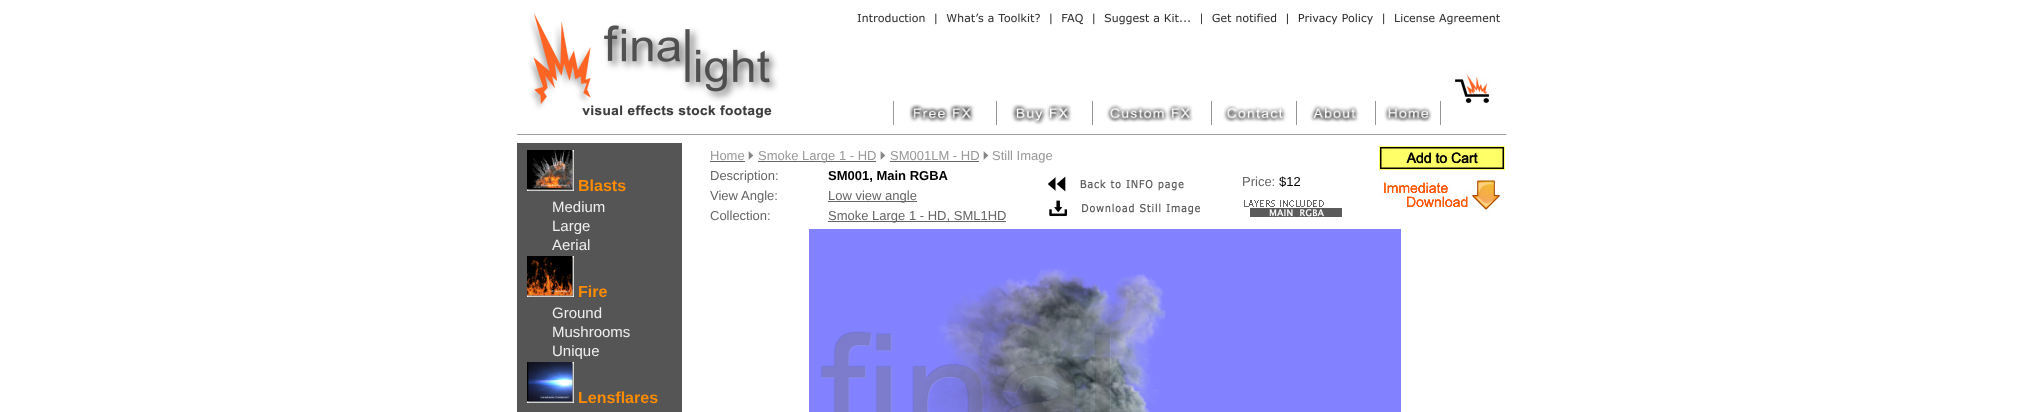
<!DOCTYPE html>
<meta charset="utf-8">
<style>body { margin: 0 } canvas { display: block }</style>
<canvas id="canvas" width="2022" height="412"></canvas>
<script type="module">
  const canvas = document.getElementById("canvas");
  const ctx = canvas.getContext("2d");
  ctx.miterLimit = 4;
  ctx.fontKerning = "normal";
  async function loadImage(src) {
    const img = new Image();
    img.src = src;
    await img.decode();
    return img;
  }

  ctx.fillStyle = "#ffffff";
  ctx.fillRect(0, 0, 2022, 412);
  ctx.drawImage(await loadImage("img1.png"), 528, 13, 251, 105);
  ctx.drawImage(await loadImage("img2.png"), 857, 13, 643, 12);
  ctx.drawImage(await loadImage("img3.png"), 1454, 68, 37, 38);
  ctx.drawImage(await loadImage("img4.png"), 893, 101, 548, 24);
  ctx.fillStyle = "#9f9f9f";
  ctx.fillRect(517, 134, 990, 1);
  ctx.fillStyle = "#eeeeee";
  ctx.fillRect(1506, 134, 1, 1);
  ctx.fillStyle = "#555555";
  ctx.fillRect(517, 143, 165, 269);
  ctx.drawImage(await loadImage("img5.png"), 527, 150, 47, 41);
  ctx.font = "bold 16px Liberation Sans";
  ctx.fillStyle = "#ff8c00";
  ctx.fillText("Blasts", 578, 191);
  ctx.font = "15px Liberation Sans";
  ctx.fillStyle = "#eeeeee";
  ctx.fillText("Medium", 552, 212);
  ctx.fillText("Large", 552, 231);
  ctx.fillText("Aerial", 552, 250);
  ctx.drawImage(await loadImage("img6.png"), 527, 256, 47, 41);
  ctx.font = "bold 16px Liberation Sans";
  ctx.fillStyle = "#ff8c00";
  ctx.fillText("Fire", 578, 297);
  ctx.font = "15px Liberation Sans";
  ctx.fillStyle = "#eeeeee";
  ctx.fillText("Ground", 552, 318);
  ctx.fillText("Mushrooms", 552, 337);
  ctx.fillText("Unique", 552, 356);
  ctx.drawImage(await loadImage("img7.png"), 527, 362, 47, 41);
  ctx.font = "bold 16px Liberation Sans";
  ctx.fillStyle = "#ff8c00";
  ctx.fillText("Lensflares", 578, 403);
  ctx.font = "13px Liberation Sans";
  ctx.fillStyle = "#999999";
  ctx.fillText("Home", 710, 160);
  ctx.fillStyle = "#666666";
  ctx.fillRect(710, 161, 35, 1);
  ctx.drawImage(await loadImage("img8.png"), 748, 151, 6, 9);
  ctx.fillRect(758, 161, 118, 1);
  ctx.fillStyle = "#999999";
  ctx.fillText("Smoke Large 1 - HD", 758, 160);
  ctx.drawImage(await loadImage("img8.png"), 880, 151, 6, 9);
  ctx.fillText("SM001LM - HD", 890, 160);
  ctx.fillStyle = "#666666";
  ctx.fillRect(890, 161, 89, 1);
  ctx.drawImage(await loadImage("img8.png"), 983, 151, 6, 9);
  ctx.fillStyle = "#999999";
  ctx.fillText("Still Image", 992, 160);
  ctx.fillStyle = "#666666";
  ctx.fillText("Description:", 710, 180);
  ctx.font = "bold 13px Liberation Sans";
  ctx.fillStyle = "#000000";
  ctx.fillText("SM001, Main RGBA", 828, 180);
  ctx.drawImage(await loadImage("img9.png"), 1047, 176, 137, 16);
  ctx.drawImage(await loadImage("img10.png"), 1049, 200, 151, 17);
  ctx.font = "13px Liberation Sans";
  ctx.fillStyle = "#666666";
  ctx.fillText("Price:", 1242, 186);
  ctx.fillStyle = "#000000";
  ctx.fillText("$12", 1279, 186);
  ctx.drawImage(await loadImage("img11.png"), 1244, 200, 80, 7);
  ctx.drawImage(await loadImage("img12.png"), 1250, 208, 92, 9);
  ctx.fillStyle = "#666666";
  ctx.fillText("View", 710, 200);
  ctx.fillText("Angle:", 741, 200);
  ctx.fillRect(828, 201, 89, 1);
  ctx.fillText("Low view angle", 828, 200);
  ctx.fillText("Collection:", 710, 220);
  ctx.fillRect(828, 221, 178, 1);
  ctx.fillText("Smoke Large 1 - HD, SML1HD", 828, 220);
  ctx.drawImage(await loadImage("img13.png"), 1379, 143, 126, 70);
  ctx.drawImage(await loadImage("img14.png"), 809, 229, 592, 183);
</script>
